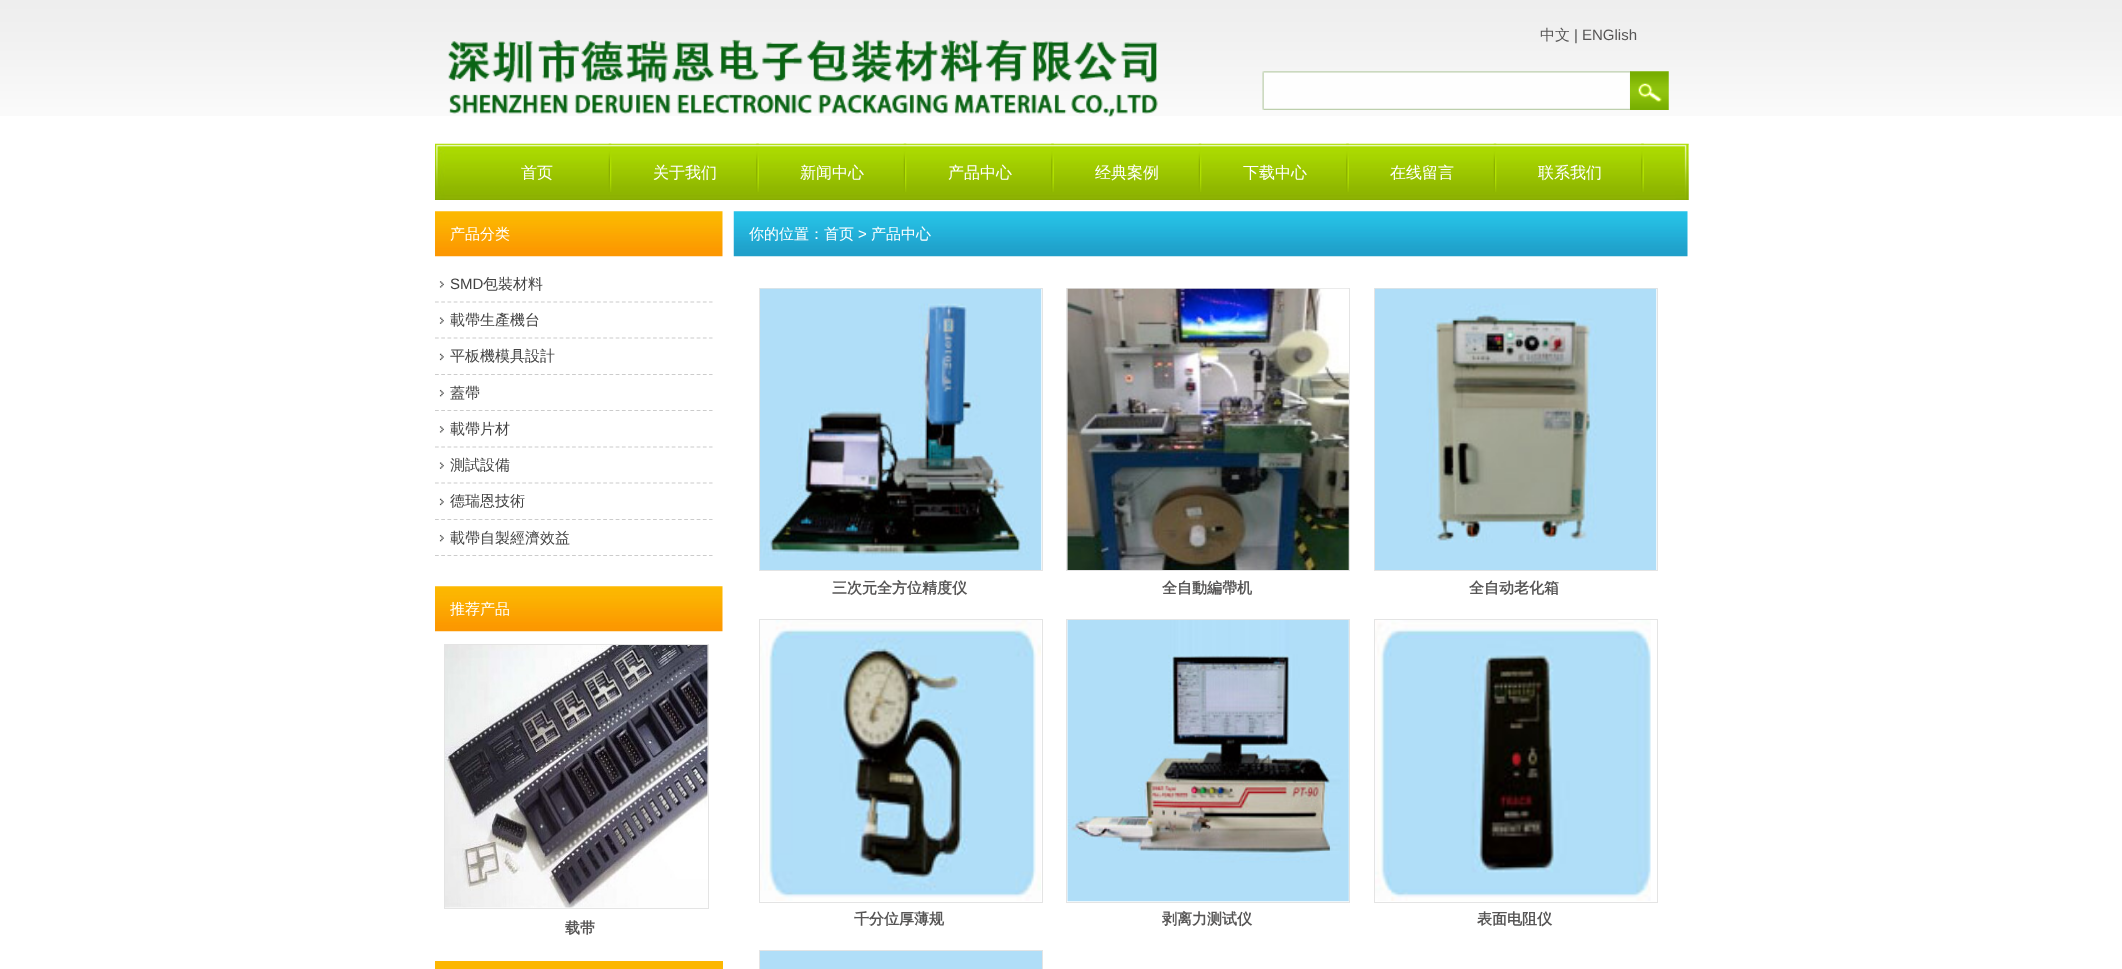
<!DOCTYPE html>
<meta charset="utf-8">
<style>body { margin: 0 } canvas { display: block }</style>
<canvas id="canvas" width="2122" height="969"></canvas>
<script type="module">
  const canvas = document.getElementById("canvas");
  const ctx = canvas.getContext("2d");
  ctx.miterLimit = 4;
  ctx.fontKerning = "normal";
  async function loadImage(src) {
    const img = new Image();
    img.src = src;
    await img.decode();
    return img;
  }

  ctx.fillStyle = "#ffffff";
  ctx.fillRect(0, 0, 2122, 969);
  ctx.drawImage(await loadImage("img1.png"), 0, 0, 2122, 116);
  ctx.font = "500 15px WenQuanYi Zen Hei";
  ctx.fillStyle = "#575656";
  ctx.fillText("中文", 1540, 40);
  ctx.font = "15px Liberation Sans";
  ctx.fillStyle = "#505050";
  ctx.fillText("|", 1574, 40);
  ctx.fillStyle = "#575656";
  ctx.fillText("ENGlish", 1582, 40);
  ctx.drawImage(await loadImage("img2.png"), 448, 39, 710, 78);
  ctx.drawImage(await loadImage("img3.png"), 1262, 71, 370, 39);
  ctx.drawImage(await loadImage("img4.png"), 1630, 71, 39, 39);
  ctx.drawImage(await loadImage("img5.png"), 435, 143, 1254, 57);
  ctx.drawImage(await loadImage("img6.png"), 608, 143, 4, 49);
  ctx.font = "500 16px WenQuanYi Zen Hei";
  ctx.fillStyle = "#ffffff";
  ctx.fillText("首页", 521, 178);
  ctx.drawImage(await loadImage("img7.png"), 756, 143, 3, 49);
  ctx.fillText("关于我们", 653, 178);
  ctx.drawImage(await loadImage("img8.png"), 903, 143, 4, 49);
  ctx.fillText("新闻中心", 800, 178);
  ctx.drawImage(await loadImage("img7.png"), 1051, 143, 3, 49);
  ctx.fillText("产品中心", 948, 178);
  ctx.drawImage(await loadImage("img9.png"), 1198, 143, 4, 49);
  ctx.fillText("经典案例", 1095, 178);
  ctx.drawImage(await loadImage("img10.png"), 1346, 143, 3, 49);
  ctx.fillText("下载中心", 1243, 178);
  ctx.drawImage(await loadImage("img11.png"), 1493, 143, 4, 49);
  ctx.fillText("在线留言", 1390, 178);
  ctx.drawImage(await loadImage("img10.png"), 1641, 143, 3, 49);
  ctx.fillText("联系我们", 1538, 178);
  ctx.drawImage(await loadImage("img12.png"), 435, 211, 288, 46);
  ctx.font = "500 15px WenQuanYi Zen Hei";
  ctx.fillText("产品分类", 450, 239);
  ctx.drawImage(await loadImage("img13.png"), 439, 281, 5, 7);
  ctx.beginPath();
  ctx.moveTo(435, 302);
  ctx.lineTo(712.5, 302);
  ctx.strokeStyle = "#cccccc";
  ctx.lineWidth = 1.2;
  ctx.setLineDash([3.75, 2.48]);
  ctx.stroke();
  ctx.font = "15px Liberation Sans";
  ctx.fillStyle = "#434343";
  ctx.fillText("SMD", 450, 289);
  ctx.font = "500 15px WenQuanYi Zen Hei";
  ctx.fillText("包裝材料", 483, 289);
  ctx.drawImage(await loadImage("img14.png"), 439, 317, 5, 7);
  ctx.beginPath();
  ctx.moveTo(435, 338);
  ctx.lineTo(712.5, 338);
  ctx.stroke();
  ctx.fillText("載帶生產機台", 450, 325);
  ctx.drawImage(await loadImage("img15.png"), 439, 353, 5, 8);
  ctx.beginPath();
  ctx.moveTo(435, 374.5);
  ctx.lineTo(712.5, 374.5);
  ctx.stroke();
  ctx.fillText("平板機模具設計", 450, 361);
  ctx.drawImage(await loadImage("img16.png"), 439, 389, 5, 8);
  ctx.beginPath();
  ctx.moveTo(435, 410.5);
  ctx.lineTo(712.5, 410.5);
  ctx.stroke();
  ctx.fillText("蓋帶", 450, 398);
  ctx.drawImage(await loadImage("img13.png"), 439, 426, 5, 7);
  ctx.beginPath();
  ctx.moveTo(435, 447);
  ctx.lineTo(712.5, 447);
  ctx.stroke();
  ctx.fillText("載帶片材", 450, 434);
  ctx.drawImage(await loadImage("img14.png"), 439, 462, 5, 7);
  ctx.beginPath();
  ctx.moveTo(435, 483);
  ctx.lineTo(712.5, 483);
  ctx.stroke();
  ctx.fillText("測試設備", 450, 470);
  ctx.drawImage(await loadImage("img15.png"), 439, 498, 5, 8);
  ctx.beginPath();
  ctx.moveTo(435, 519.5);
  ctx.lineTo(712.5, 519.5);
  ctx.stroke();
  ctx.fillText("德瑞恩技術", 450, 506);
  ctx.drawImage(await loadImage("img16.png"), 439, 534, 5, 8);
  ctx.beginPath();
  ctx.moveTo(435, 555.5);
  ctx.lineTo(712.5, 555.5);
  ctx.stroke();
  ctx.fillText("載帶自製經濟效益", 450, 543);
  ctx.drawImage(await loadImage("img17.png"), 435, 586, 288, 46);
  ctx.fillStyle = "#ffffff";
  ctx.fillText("推荐产品", 450, 614);
  ctx.strokeStyle = "#e4e4e4";
  ctx.lineWidth = 1;
  ctx.setLineDash([]);
  ctx.strokeRect(444.5, 644.5, 264, 264);
  ctx.drawImage(await loadImage("img18.png"), 445, 645, 263, 263);
  ctx.font = "bold 15px WenQuanYi Zen Hei";
  ctx.fillStyle = "#575656";
  ctx.fillText("载带", 565, 933);
  ctx.fillStyle = "#fcb701";
  ctx.fillRect(435, 961, 288, 8);
  ctx.drawImage(await loadImage("img19.png"), 733, 211, 955, 46);
  ctx.font = "500 15px WenQuanYi Zen Hei";
  ctx.fillStyle = "#ffffff";
  ctx.fillText("你的位置：首页", 749, 239);
  ctx.font = "15px Liberation Sans";
  ctx.fillText(">", 858, 239);
  ctx.font = "500 15px WenQuanYi Zen Hei";
  ctx.fillText("产品中心", 871, 239);
  ctx.strokeRect(759.5, 288.5, 283, 282);
  ctx.drawImage(await loadImage("img20.png"), 760, 288, 282, 282);
  ctx.font = "bold 15px WenQuanYi Zen Hei";
  ctx.fillStyle = "#575656";
  ctx.fillText("三次元全方位精度仪", 832, 593);
  ctx.strokeRect(1066.5, 288.5, 283, 282);
  ctx.drawImage(await loadImage("img21.png"), 1067, 288, 282, 282);
  ctx.fillText("全自動編帶机", 1162, 593);
  ctx.strokeRect(1374.5, 288.5, 283, 282);
  ctx.drawImage(await loadImage("img22.png"), 1375, 288, 282, 282);
  ctx.fillText("全自动老化箱", 1469, 593);
  ctx.strokeRect(759.5, 619.5, 283, 283);
  ctx.drawImage(await loadImage("img23.png"), 760, 620, 281, 281);
  ctx.fillText("千分位厚薄规", 854, 924);
  ctx.strokeRect(1066.5, 619.5, 283, 283);
  ctx.drawImage(await loadImage("img24.png"), 1067, 620, 282, 282);
  ctx.fillText("剥离力测试仪", 1162, 924);
  ctx.strokeRect(1374.5, 619.5, 283, 283);
  ctx.drawImage(await loadImage("img25.png"), 1375, 620, 276, 281);
  ctx.fillText("表面电阻仪", 1477, 924);
  ctx.strokeRect(759.5, 950.5, 283, 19);
  ctx.fillStyle = "#b0def8";
  ctx.fillRect(760, 951, 282, 18);
</script>
